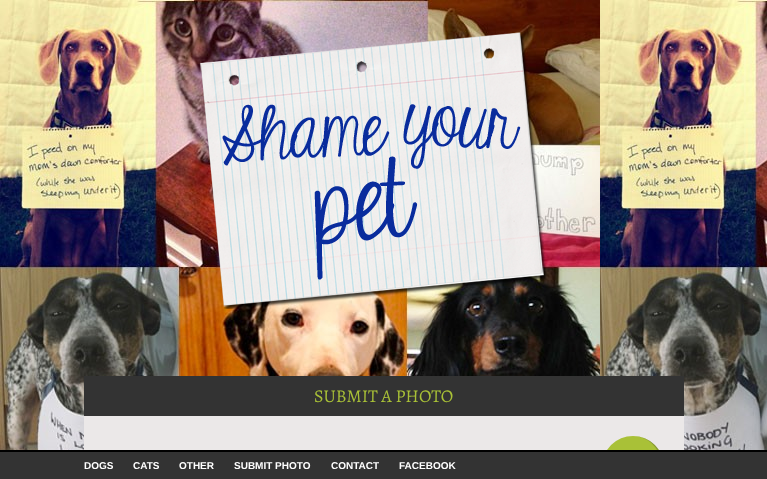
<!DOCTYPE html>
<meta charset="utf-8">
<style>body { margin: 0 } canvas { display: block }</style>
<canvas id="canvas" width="767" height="479"></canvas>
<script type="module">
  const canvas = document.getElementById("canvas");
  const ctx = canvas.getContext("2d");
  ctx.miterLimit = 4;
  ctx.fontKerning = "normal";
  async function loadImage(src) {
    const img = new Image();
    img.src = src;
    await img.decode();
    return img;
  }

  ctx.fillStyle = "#ffffff";
  ctx.fillRect(0, 0, 767, 479);
  ctx.drawImage(await loadImage("img1.png"), 0, 0, 767, 450);
  ctx.drawImage(await loadImage("img2.png"), 200, 32, 347, 277);
  ctx.fillStyle = "#333333";
  ctx.fillRect(84, 376, 600, 40);
  ctx.font = "18px Alegreya";
  ctx.fillStyle = "#a9c137";
  ctx.fillText("SUBMIT A PHOTO", 314, 402);
  ctx.fillStyle = "#ebe8e8";
  ctx.fillRect(84, 416, 600, 34);
  ctx.fillStyle = "#a9c137";
  ctx.beginPath();
  ctx.arc(633, 467, 31, 0, Math.PI * 2);
  ctx.fill();
  ctx.fillStyle = "rgba(51, 51, 51, 0.3)";
  ctx.beginPath();
  ctx.moveTo(633, 436);
  ctx.bezierCurveTo(650, 436, 664, 450, 664, 467);
  ctx.bezierCurveTo(664, 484, 650, 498, 633, 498);
  ctx.bezierCurveTo(616, 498, 602, 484, 602, 467);
  ctx.bezierCurveTo(602, 450, 616, 436, 633, 436);
  ctx.closePath();
  ctx.moveTo(633, 436);
  ctx.bezierCurveTo(649, 436, 662, 450, 662, 467);
  ctx.bezierCurveTo(662, 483, 649, 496, 633, 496);
  ctx.bezierCurveTo(616, 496, 602, 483, 602, 467);
  ctx.bezierCurveTo(602, 450, 616, 436, 633, 436);
  ctx.closePath();
  ctx.fill("evenodd");
  ctx.fillStyle = "#333333";
  ctx.fillRect(0, 452, 767, 27);
  ctx.fillStyle = "#000000";
  ctx.fillRect(0, 450, 767, 2);
  ctx.font = "bold 10px Liberation Sans";
  ctx.fillStyle = "#ffffff";
  ctx.fillText("DOGS", 84, 469);
  ctx.fillText("CATS", 133, 469);
  ctx.fillText("OTHER", 179, 469);
  ctx.fillText("SUBMIT PHOTO", 234, 469);
  ctx.fillText("CONTACT", 331, 469);
  ctx.fillText("FACEBOOK", 399, 469);
</script>
